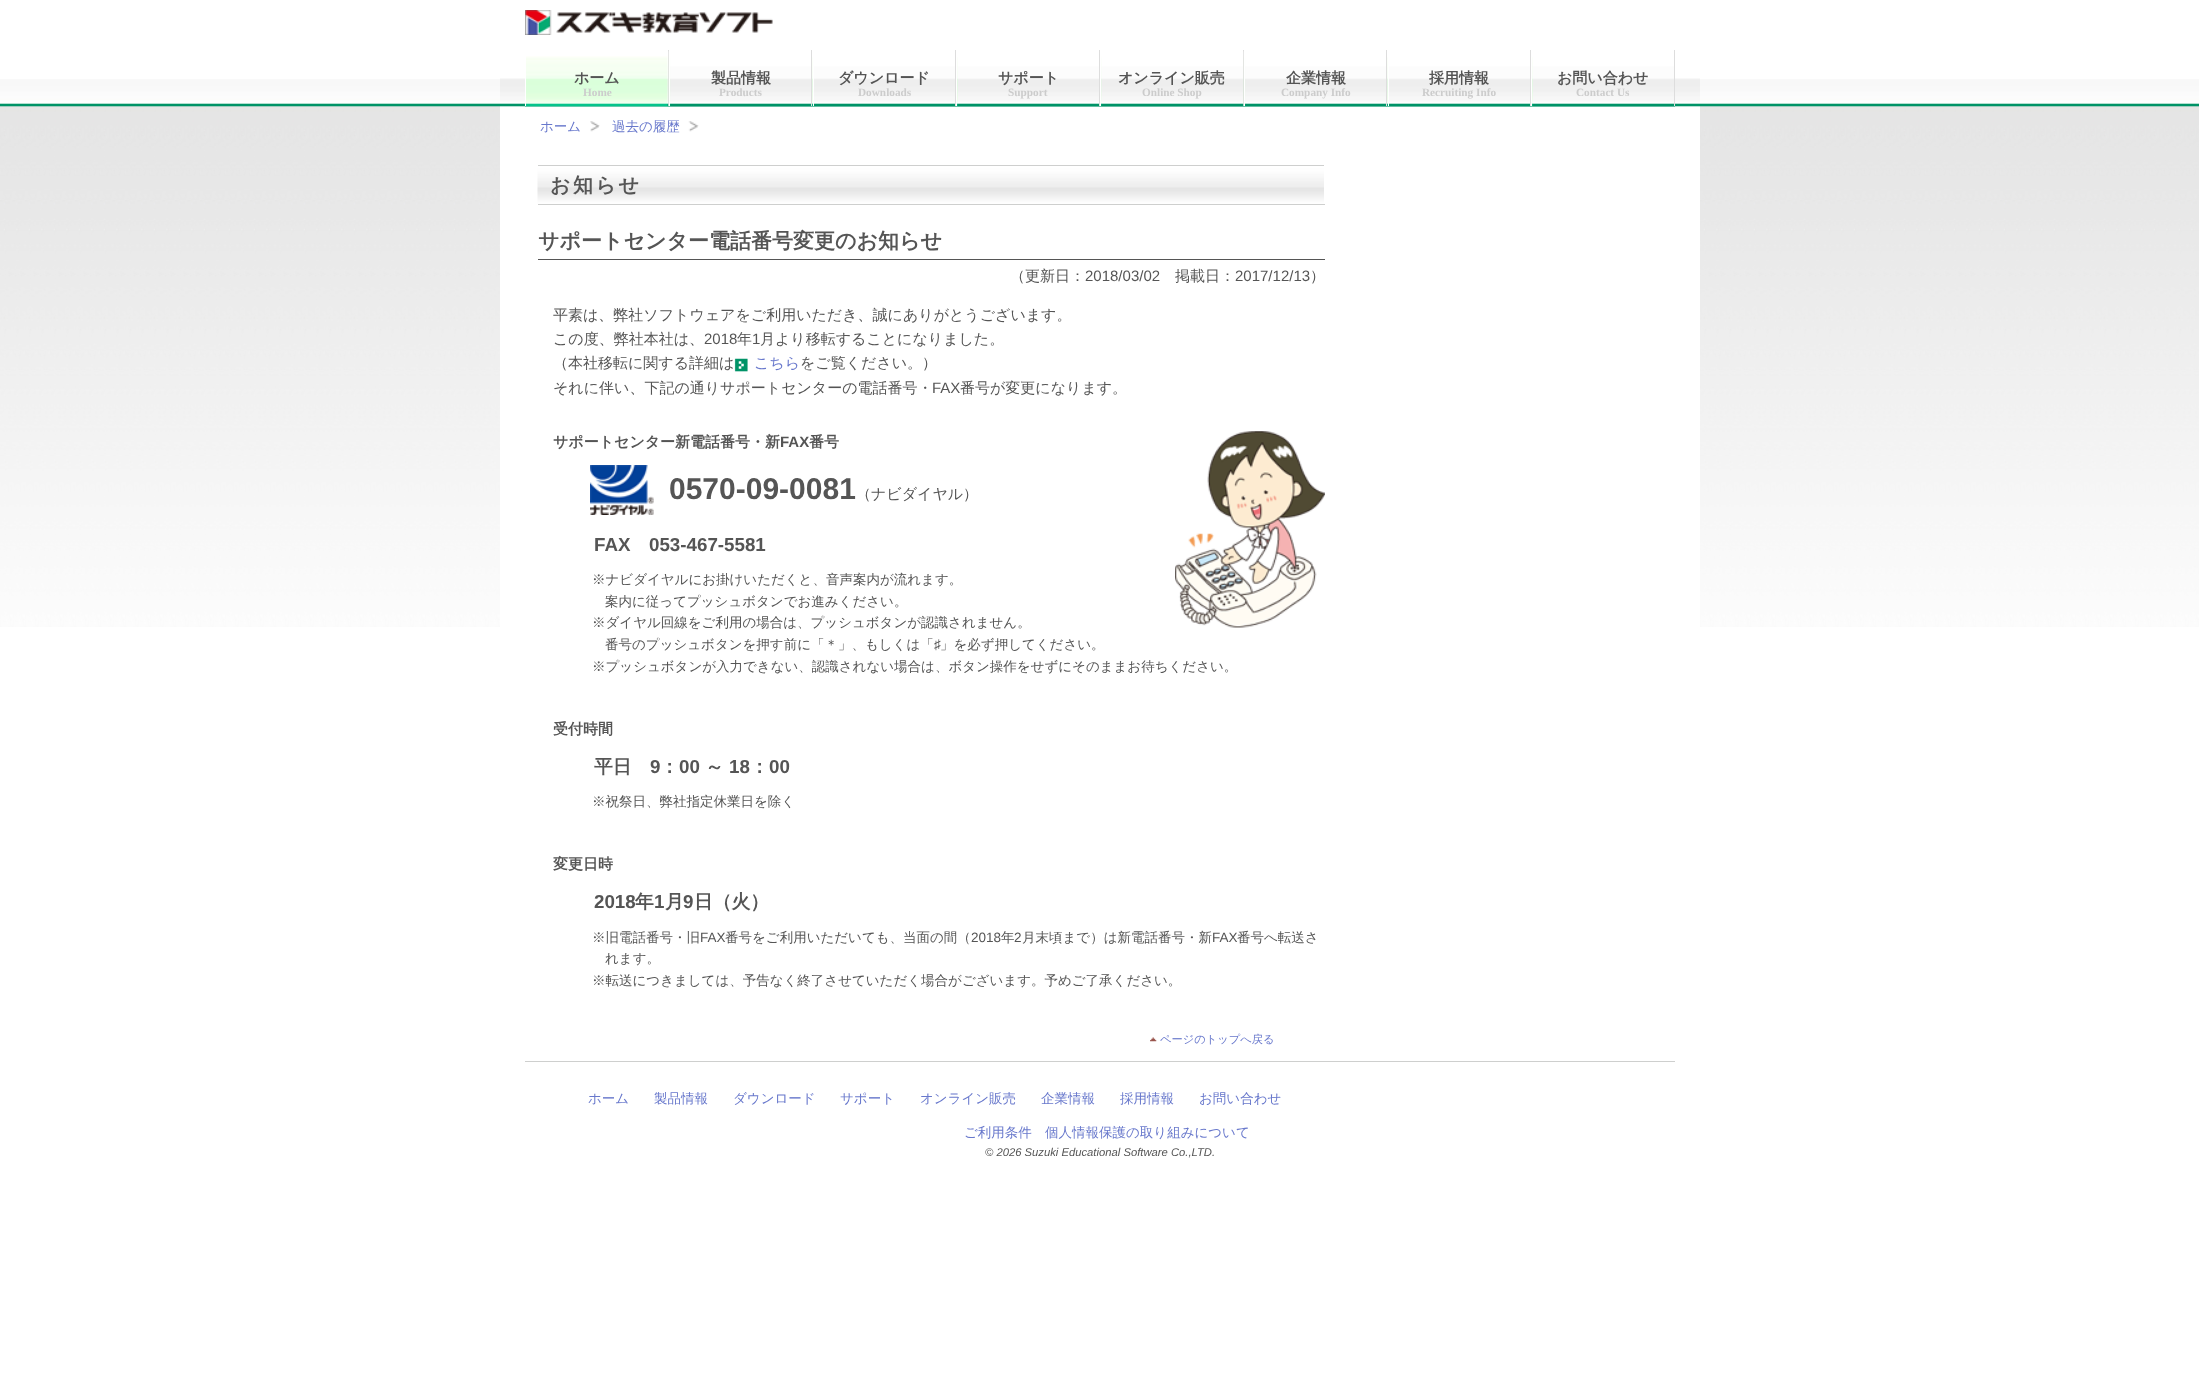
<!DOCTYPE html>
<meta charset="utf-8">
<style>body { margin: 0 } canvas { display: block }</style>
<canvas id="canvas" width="2199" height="1385"></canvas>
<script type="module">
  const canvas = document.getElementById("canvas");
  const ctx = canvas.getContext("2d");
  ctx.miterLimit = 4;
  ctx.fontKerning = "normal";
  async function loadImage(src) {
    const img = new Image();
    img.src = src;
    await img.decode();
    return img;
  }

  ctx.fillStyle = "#ffffff";
  ctx.fillRect(0, 0, 2199, 1385);
  ctx.drawImage(await loadImage("img1.png"), 0, 79, 2199, 548);
  ctx.fillRect(500, 79, 1200, 548);
  ctx.drawImage(await loadImage("img2.png"), 500, 78, 1200, 29);
  ctx.drawImage(await loadImage("img3.png"), 525, 10, 248, 25);
  ctx.fillStyle = "#86ccb7";
  ctx.fillRect(525, 106, 1150, 1);
  ctx.drawImage(await loadImage("img4.png"), 525, 56, 144, 51);
  ctx.fillStyle = "#dddddd";
  ctx.fillRect(668, 50, 1, 56);
  ctx.fillStyle = "#ffffff";
  ctx.fillRect(525, 50, 1, 56);
  ctx.font = "bold 15px WenQuanYi Zen Hei";
  ctx.fillStyle = "#555555";
  ctx.fillText("ホーム", 574, 83);
  ctx.font = "bold 11.25px Liberation Serif";
  ctx.fillStyle = "#cccccc";
  ctx.fillText("Home", 583, 96);
  ctx.drawImage(await loadImage("img5.png"), 668, 51, 145, 56);
  ctx.fillStyle = "#dddddd";
  ctx.fillRect(811, 50, 1, 56);
  ctx.fillStyle = "#ffffff";
  ctx.fillRect(669, 50, 1, 56);
  ctx.font = "bold 15px WenQuanYi Zen Hei";
  ctx.fillStyle = "#555555";
  ctx.fillText("製品情報", 711, 83);
  ctx.font = "bold 11.25px Liberation Serif";
  ctx.fillStyle = "#cccccc";
  ctx.fillText("Products", 719, 96);
  ctx.drawImage(await loadImage("img6.png"), 812, 57, 145, 50);
  ctx.fillStyle = "#dddddd";
  ctx.fillRect(955, 50, 1, 56);
  ctx.fillStyle = "#ffffff";
  ctx.fillRect(813, 50, 1, 56);
  ctx.font = "bold 15px WenQuanYi Zen Hei";
  ctx.fillStyle = "#555555";
  ctx.fillText("ダウンロード", 838, 83);
  ctx.font = "bold 11.25px Liberation Serif";
  ctx.fillStyle = "#cccccc";
  ctx.fillText("Downloads", 858, 96);
  ctx.drawImage(await loadImage("img7.png"), 956, 57, 144, 50);
  ctx.fillStyle = "#dddddd";
  ctx.fillRect(1099, 50, 1, 56);
  ctx.fillStyle = "#ffffff";
  ctx.fillRect(956, 50, 1, 56);
  ctx.font = "bold 15px WenQuanYi Zen Hei";
  ctx.fillStyle = "#555555";
  ctx.fillText("サポート", 998, 83);
  ctx.font = "bold 11.25px Liberation Serif";
  ctx.fillStyle = "#cccccc";
  ctx.fillText("Support", 1008, 96);
  ctx.drawImage(await loadImage("img8.png"), 1100, 56, 144, 51);
  ctx.fillStyle = "#dddddd";
  ctx.fillRect(1243, 50, 1, 56);
  ctx.fillStyle = "#ffffff";
  ctx.fillRect(1100, 50, 1, 56);
  ctx.font = "bold 15px WenQuanYi Zen Hei";
  ctx.fillStyle = "#555555";
  ctx.fillText("オンライン販売", 1118, 83);
  ctx.font = "bold 11.25px Liberation Serif";
  ctx.fillStyle = "#cccccc";
  ctx.fillText("Online Shop", 1142, 96);
  ctx.drawImage(await loadImage("img9.png"), 1243, 51, 145, 56);
  ctx.fillStyle = "#dddddd";
  ctx.fillRect(1386, 50, 1, 56);
  ctx.fillStyle = "#ffffff";
  ctx.fillRect(1244, 50, 1, 56);
  ctx.font = "bold 15px WenQuanYi Zen Hei";
  ctx.fillStyle = "#555555";
  ctx.fillText("企業情報", 1286, 83);
  ctx.font = "bold 11.25px Liberation Serif";
  ctx.fillStyle = "#cccccc";
  ctx.fillText("Company Info", 1281, 96);
  ctx.drawImage(await loadImage("img10.png"), 1387, 57, 145, 50);
  ctx.fillStyle = "#dddddd";
  ctx.fillRect(1530, 50, 1, 56);
  ctx.fillStyle = "#ffffff";
  ctx.fillRect(1388, 50, 1, 56);
  ctx.font = "bold 15px WenQuanYi Zen Hei";
  ctx.fillStyle = "#555555";
  ctx.fillText("採用情報", 1429, 83);
  ctx.font = "bold 11.25px Liberation Serif";
  ctx.fillStyle = "#cccccc";
  ctx.fillText("Recruiting Info", 1422, 96);
  ctx.drawImage(await loadImage("img7.png"), 1531, 57, 144, 50);
  ctx.fillStyle = "#dddddd";
  ctx.fillRect(1674, 50, 1, 56);
  ctx.fillStyle = "#ffffff";
  ctx.fillRect(1531, 50, 1, 56);
  ctx.font = "bold 15px WenQuanYi Zen Hei";
  ctx.fillStyle = "#555555";
  ctx.fillText("お問い合わせ", 1557, 83);
  ctx.font = "bold 11.25px Liberation Serif";
  ctx.fillStyle = "#cccccc";
  ctx.fillText("Contact Us", 1576, 96);
  ctx.font = "500 13.5px WenQuanYi Zen Hei";
  ctx.fillStyle = "#6878cc";
  ctx.fillText("ホーム", 540, 131);
  ctx.drawImage(await loadImage("img11.png"), 590, 121, 10, 11);
  ctx.fillText("過去の履歴", 612, 131);
  ctx.drawImage(await loadImage("img12.png"), 688, 121, 11, 11);
  ctx.drawImage(await loadImage("img13.png"), 537, 165, 787, 40);
  ctx.fillStyle = "#cecfce";
  ctx.fillRect(538, 165, 787, 1);
  ctx.fillStyle = "#ffffff";
  ctx.fillRect(1324, 165, 1, 1);
  ctx.fillStyle = "#cecfce";
  ctx.fillRect(538, 204, 787, 1);
  ctx.letterSpacing = "2.5px";
  ctx.font = "bold 20px WenQuanYi Zen Hei";
  ctx.fillStyle = "#555555";
  ctx.fillText("お知らせ", 550, 192);
  ctx.fillRect(538, 259, 787, 1);
  ctx.letterSpacing = "0px";
  ctx.font = "bold 21px WenQuanYi Zen Hei";
  ctx.fillText("サポートセンター電話番号変更のお知らせ", 538, 248);
  ctx.font = "500 15px WenQuanYi Zen Hei";
  ctx.fillText("（更新日：", 1010, 281);
  ctx.font = "15px Liberation Sans";
  ctx.fillText("2018/03/02", 1085, 281);
  ctx.font = "500 15px WenQuanYi Zen Hei";
  ctx.fillText("掲載日：", 1175, 281);
  ctx.font = "15px Liberation Sans";
  ctx.fillText("2017/12/13", 1235, 281);
  ctx.font = "500 15px WenQuanYi Zen Hei";
  ctx.fillText("）", 1310, 281);
  ctx.fillText("平素は、弊社ソフトウェアをご利用いただき、誠にありがとうございます。", 553, 320);
  ctx.fillText("この度、弊社本社は、", 553, 344);
  ctx.font = "15px Liberation Sans";
  ctx.fillText("2018", 704, 344);
  ctx.font = "500 15px WenQuanYi Zen Hei";
  ctx.fillText("年", 737, 344);
  ctx.font = "15px Liberation Sans";
  ctx.fillText("1", 752, 344);
  ctx.font = "500 15px WenQuanYi Zen Hei";
  ctx.fillText("月より移転することになりました。", 760, 344);
  ctx.fillText("（本社移転に関する詳細は", 553, 368);
  ctx.drawImage(await loadImage("img14.png"), 734, 358, 14, 14);
  ctx.fillStyle = "#6878cc";
  ctx.fillText("こちら", 754, 368);
  ctx.fillStyle = "#555555";
  ctx.fillText("をご覧ください。）", 800, 368);
  ctx.fillText("それに伴い、下記の通りサポートセンターの電話番号・", 553, 393);
  ctx.font = "15px Liberation Sans";
  ctx.fillText("FAX", 932, 393);
  ctx.font = "500 15px WenQuanYi Zen Hei";
  ctx.fillText("番号が変更になります。", 960, 393);
  ctx.font = "bold 15px WenQuanYi Zen Hei";
  ctx.fillText("サポートセンター新電話番号・新", 553, 447);
  ctx.font = "bold 15px Liberation Sans";
  ctx.fillText("FAX", 780, 447);
  ctx.font = "bold 15px WenQuanYi Zen Hei";
  ctx.fillText("番号", 809, 447);
  ctx.drawImage(await loadImage("img15.png"), 1175, 431, 150, 197);
  ctx.drawImage(await loadImage("img16.png"), 590, 465, 64, 50);
  ctx.font = "bold 30px Liberation Sans";
  ctx.fillText("0570-09-0081", 669, 499);
  ctx.font = "500 15px WenQuanYi Zen Hei";
  ctx.fillText("（ナビダイヤル）", 856, 499);
  ctx.font = "bold 18.75px Liberation Sans";
  ctx.fillText("FAX", 594, 551);
  ctx.fillText("053-467-5581", 649, 551);
  ctx.font = "500 13.5px WenQuanYi Zen Hei";
  ctx.fillText("※ナビダイヤルにお掛けいただくと、音声案内が流れます。", 592, 584);
  ctx.fillText("案内に従ってプッシュボタンでお進みください。", 605, 606);
  ctx.fillText("※ダイヤル回線をご利用の場合は、プッシュボタンが認識されません。", 592, 627);
  ctx.fillText("番号のプッシュボタンを押す前に「＊」、もしくは「", 605, 649);
  ctx.font = "13.5px Liberation Sans";
  ctx.fillText("♯", 934, 649);
  ctx.font = "500 13.5px WenQuanYi Zen Hei";
  ctx.fillText("」を必ず押してください。", 940, 649);
  ctx.fillText("※プッシュボタンが入力できない、認識されない場合は、ボタン操作をせずにそのままお待ちください。", 592, 671);
  ctx.font = "bold 15px WenQuanYi Zen Hei";
  ctx.fillText("受付時間", 553, 734);
  ctx.font = "bold 18.75px WenQuanYi Zen Hei";
  ctx.fillText("平日", 594, 773);
  ctx.font = "bold 18.75px Liberation Sans";
  ctx.fillText("9", 650, 773);
  ctx.font = "bold 18.75px WenQuanYi Zen Hei";
  ctx.fillText("：", 660, 773);
  ctx.font = "bold 18.75px Liberation Sans";
  ctx.fillText("00", 679, 773);
  ctx.font = "bold 18.75px WenQuanYi Zen Hei";
  ctx.fillText("～", 705, 773);
  ctx.font = "bold 18.75px Liberation Sans";
  ctx.fillText("18", 729, 773);
  ctx.font = "bold 18.75px WenQuanYi Zen Hei";
  ctx.fillText("：", 750, 773);
  ctx.font = "bold 18.75px Liberation Sans";
  ctx.fillText("00", 769, 773);
  ctx.font = "500 13.5px WenQuanYi Zen Hei";
  ctx.fillText("※祝祭日、弊社指定休業日を除く", 592, 806);
  ctx.font = "bold 15px WenQuanYi Zen Hei";
  ctx.fillText("変更日時", 553, 869);
  ctx.font = "bold 18.75px Liberation Sans";
  ctx.fillText("2018", 594, 908);
  ctx.font = "bold 18.75px WenQuanYi Zen Hei";
  ctx.fillText("年", 635, 908);
  ctx.font = "bold 18.75px Liberation Sans";
  ctx.fillText("1", 654, 908);
  ctx.font = "bold 18.75px WenQuanYi Zen Hei";
  ctx.fillText("月", 665, 908);
  ctx.font = "bold 18.75px Liberation Sans";
  ctx.fillText("9", 683, 908);
  ctx.font = "bold 18.75px WenQuanYi Zen Hei";
  ctx.fillText("日（火）", 694, 908);
  ctx.font = "500 13.5px WenQuanYi Zen Hei";
  ctx.fillText("※旧電話番号・旧", 592, 942);
  ctx.font = "13.5px Liberation Sans";
  ctx.fillText("FAX", 700, 942);
  ctx.font = "500 13.5px WenQuanYi Zen Hei";
  ctx.fillText("番号をご利用いただいても、当面の間（", 725, 942);
  ctx.font = "13.5px Liberation Sans";
  ctx.fillText("2018", 971, 942);
  ctx.font = "500 13.5px WenQuanYi Zen Hei";
  ctx.fillText("年", 1001, 942);
  ctx.font = "13.5px Liberation Sans";
  ctx.fillText("2", 1014, 942);
  ctx.font = "500 13.5px WenQuanYi Zen Hei";
  ctx.fillText("月末頃まで）は新電話番号・新", 1022, 942);
  ctx.font = "13.5px Liberation Sans";
  ctx.fillText("FAX", 1212, 942);
  ctx.font = "500 13.5px WenQuanYi Zen Hei";
  ctx.fillText("番号へ転送さ", 1237, 942);
  ctx.fillText("れます。", 605, 963);
  ctx.fillText("※転送につきましては、予告なく終了させていただく場合がございます。予めご了承ください。", 592, 985);
  ctx.drawImage(await loadImage("img17.png"), 1150, 1037, 7, 5);
  ctx.font = "500 11.25px WenQuanYi Zen Hei";
  ctx.fillStyle = "#6878cc";
  ctx.fillText("ページのトップへ戻る", 1160, 1043);
  ctx.fillStyle = "#cecfce";
  ctx.fillRect(525, 1061, 1150, 1);
  ctx.font = "500 13.5px WenQuanYi Zen Hei";
  ctx.fillStyle = "#6878cc";
  ctx.fillText("ホーム", 588, 1103);
  ctx.fillText("製品情報", 654, 1103);
  ctx.fillText("ダウンロード", 733, 1103);
  ctx.fillText("サポート", 840, 1103);
  ctx.fillText("オンライン販売", 920, 1103);
  ctx.fillText("企業情報", 1041, 1103);
  ctx.fillText("採用情報", 1120, 1103);
  ctx.fillText("お問い合わせ", 1199, 1103);
  ctx.fillText("ご利用条件", 964, 1137);
  ctx.fillText("個人情報保護の取り組みについて", 1045, 1137);
  ctx.font = "italic 11.25px Liberation Sans";
  ctx.fillStyle = "#555555";
  ctx.fillText("© 2026 Suzuki Educational Software Co.,LTD.", 985, 1156);
</script>
